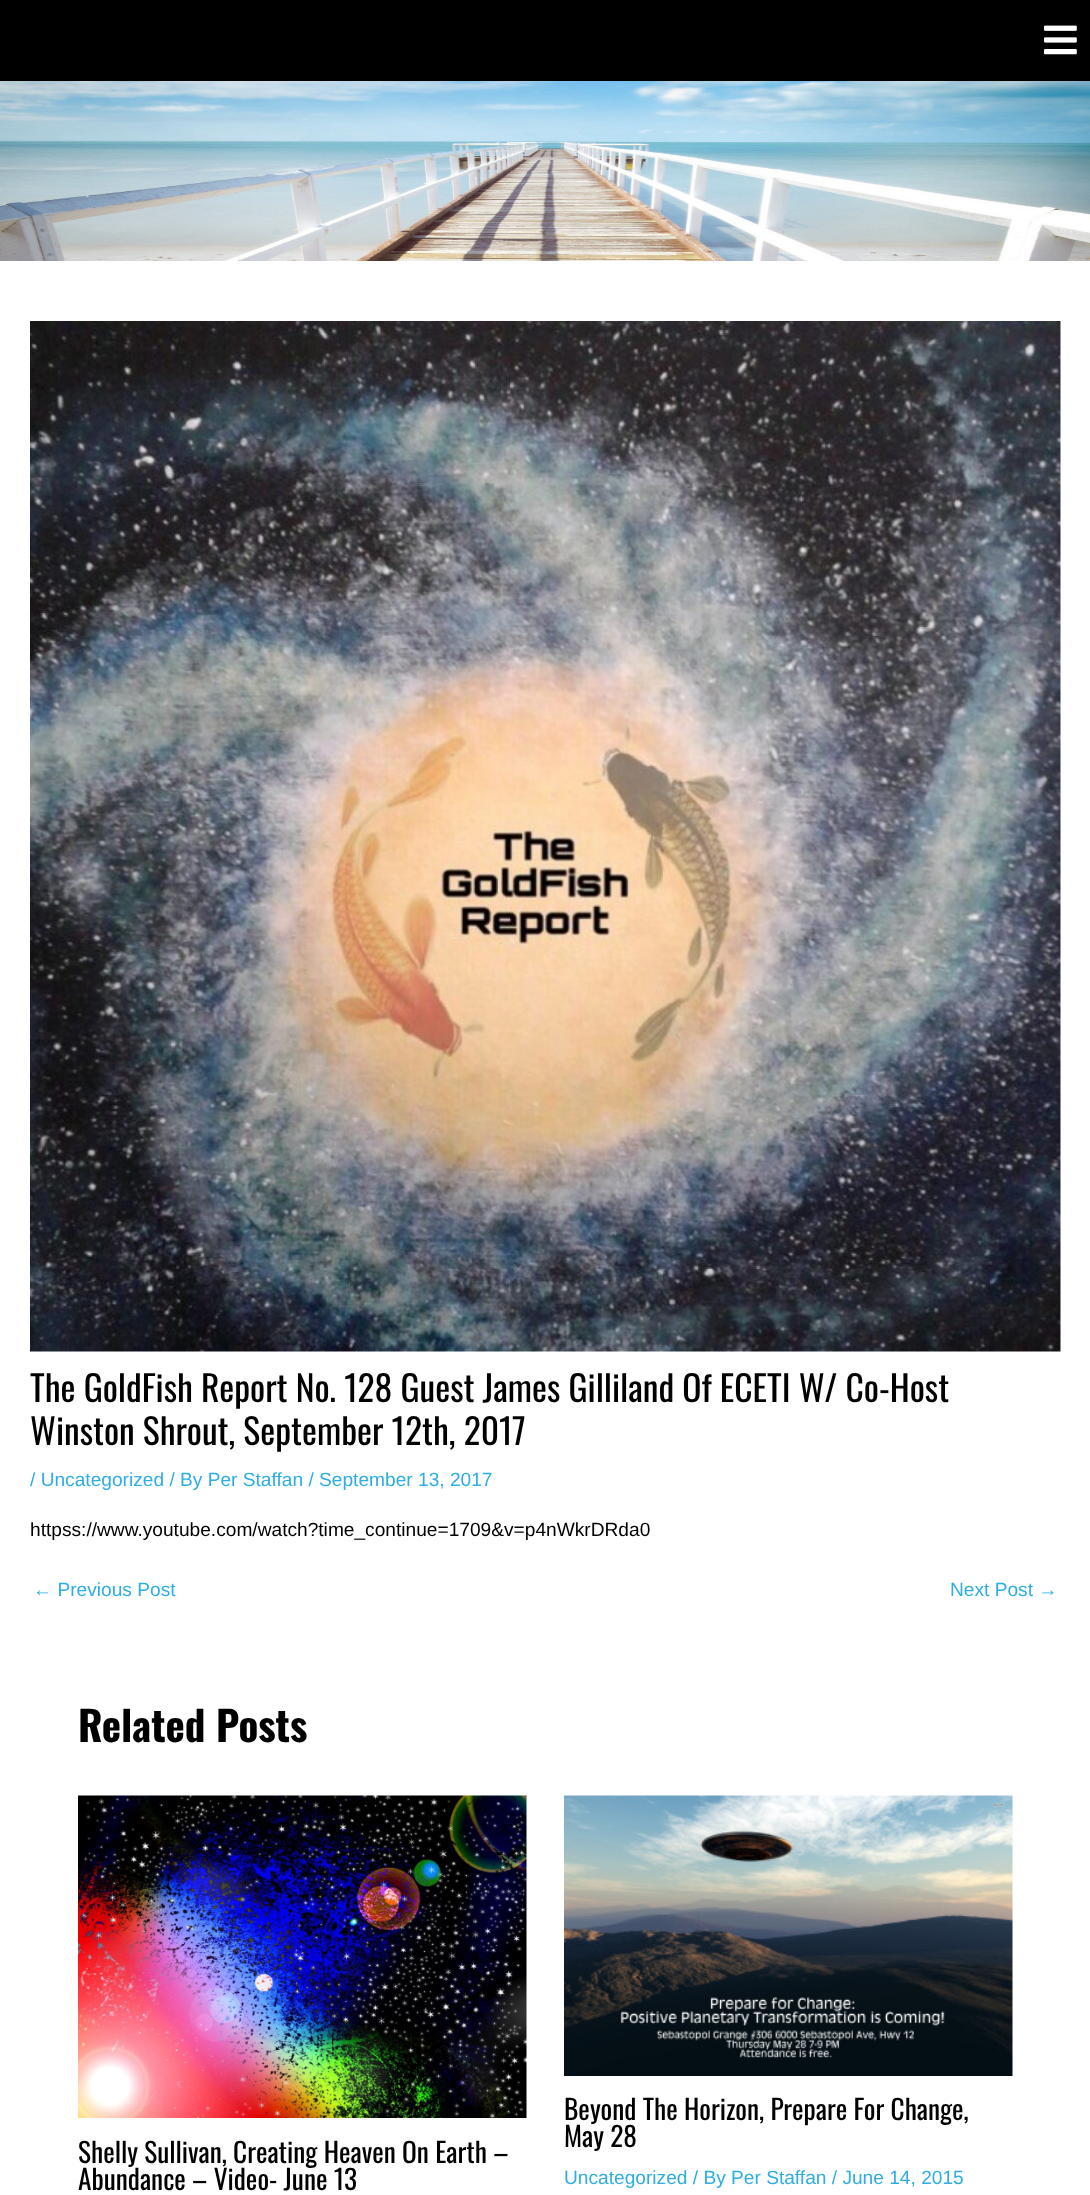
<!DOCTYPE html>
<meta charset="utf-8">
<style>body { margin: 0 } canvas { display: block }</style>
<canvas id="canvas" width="1090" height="2195"></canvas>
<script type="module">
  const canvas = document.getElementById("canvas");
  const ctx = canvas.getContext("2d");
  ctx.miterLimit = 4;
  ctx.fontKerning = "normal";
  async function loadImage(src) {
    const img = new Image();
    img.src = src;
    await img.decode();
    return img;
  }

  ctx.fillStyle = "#ffffff";
  ctx.fillRect(0, 0, 1090, 2195);
  ctx.fillStyle = "#000000";
  ctx.fillRect(0, 0, 1090, 81);
  ctx.drawImage(await loadImage("img1.png"), 1044, 25, 33, 30);
  ctx.drawImage(await loadImage("img2.png"), 0, 81, 1090, 180);
  ctx.drawImage(await loadImage("img3.png"), 30, 321, 1031, 1031);
  ctx.font = "35.6px Oswald";
  ctx.fillText("The GoldFish Report No. 128 Guest James Gilliland Of ECETI W/ Co-Host", 30, 1402);
  ctx.fillText("Winston Shrout, September 12th, 2017", 30, 1445);
  ctx.font = "19.15px Liberation Sans";
  ctx.fillStyle = "#2daee5";
  ctx.fillText("/ Uncategorized / By Per Staffan / September 13, 2017", 30, 1486);
  ctx.fillStyle = "#000000";
  ctx.fillText("httpss://www.youtube.com/watch?time_continue=1709&v=p4nWkrDRda0", 30, 1536);
  ctx.fillStyle = "#2daee5";
  ctx.fillText("← Previous Post", 33, 1596);
  ctx.fillText("Next Post →", 950, 1596);
  ctx.font = "bold 41px Oswald";
  ctx.fillStyle = "#000000";
  ctx.fillText("Related Posts", 78, 1742);
  ctx.drawImage(await loadImage("img4.png"), 78, 1795, 449, 323);
  ctx.font = "27.4px Oswald";
  ctx.fillText("Shelly Sullivan, Creating Heaven On Earth –", 78, 2163);
  ctx.fillText("Abundance – Video- June 13", 78, 2190);
  ctx.drawImage(await loadImage("img5.png"), 564, 1795, 449, 281);
  ctx.fillText("Beyond The Horizon, Prepare For Change,", 564, 2120);
  ctx.fillText("May 28", 564, 2147);
  ctx.font = "19.15px Liberation Sans";
  ctx.fillStyle = "#2daee5";
  ctx.fillText("Uncategorized / By Per Staffan / June 14, 2015", 564, 2184);
</script>
